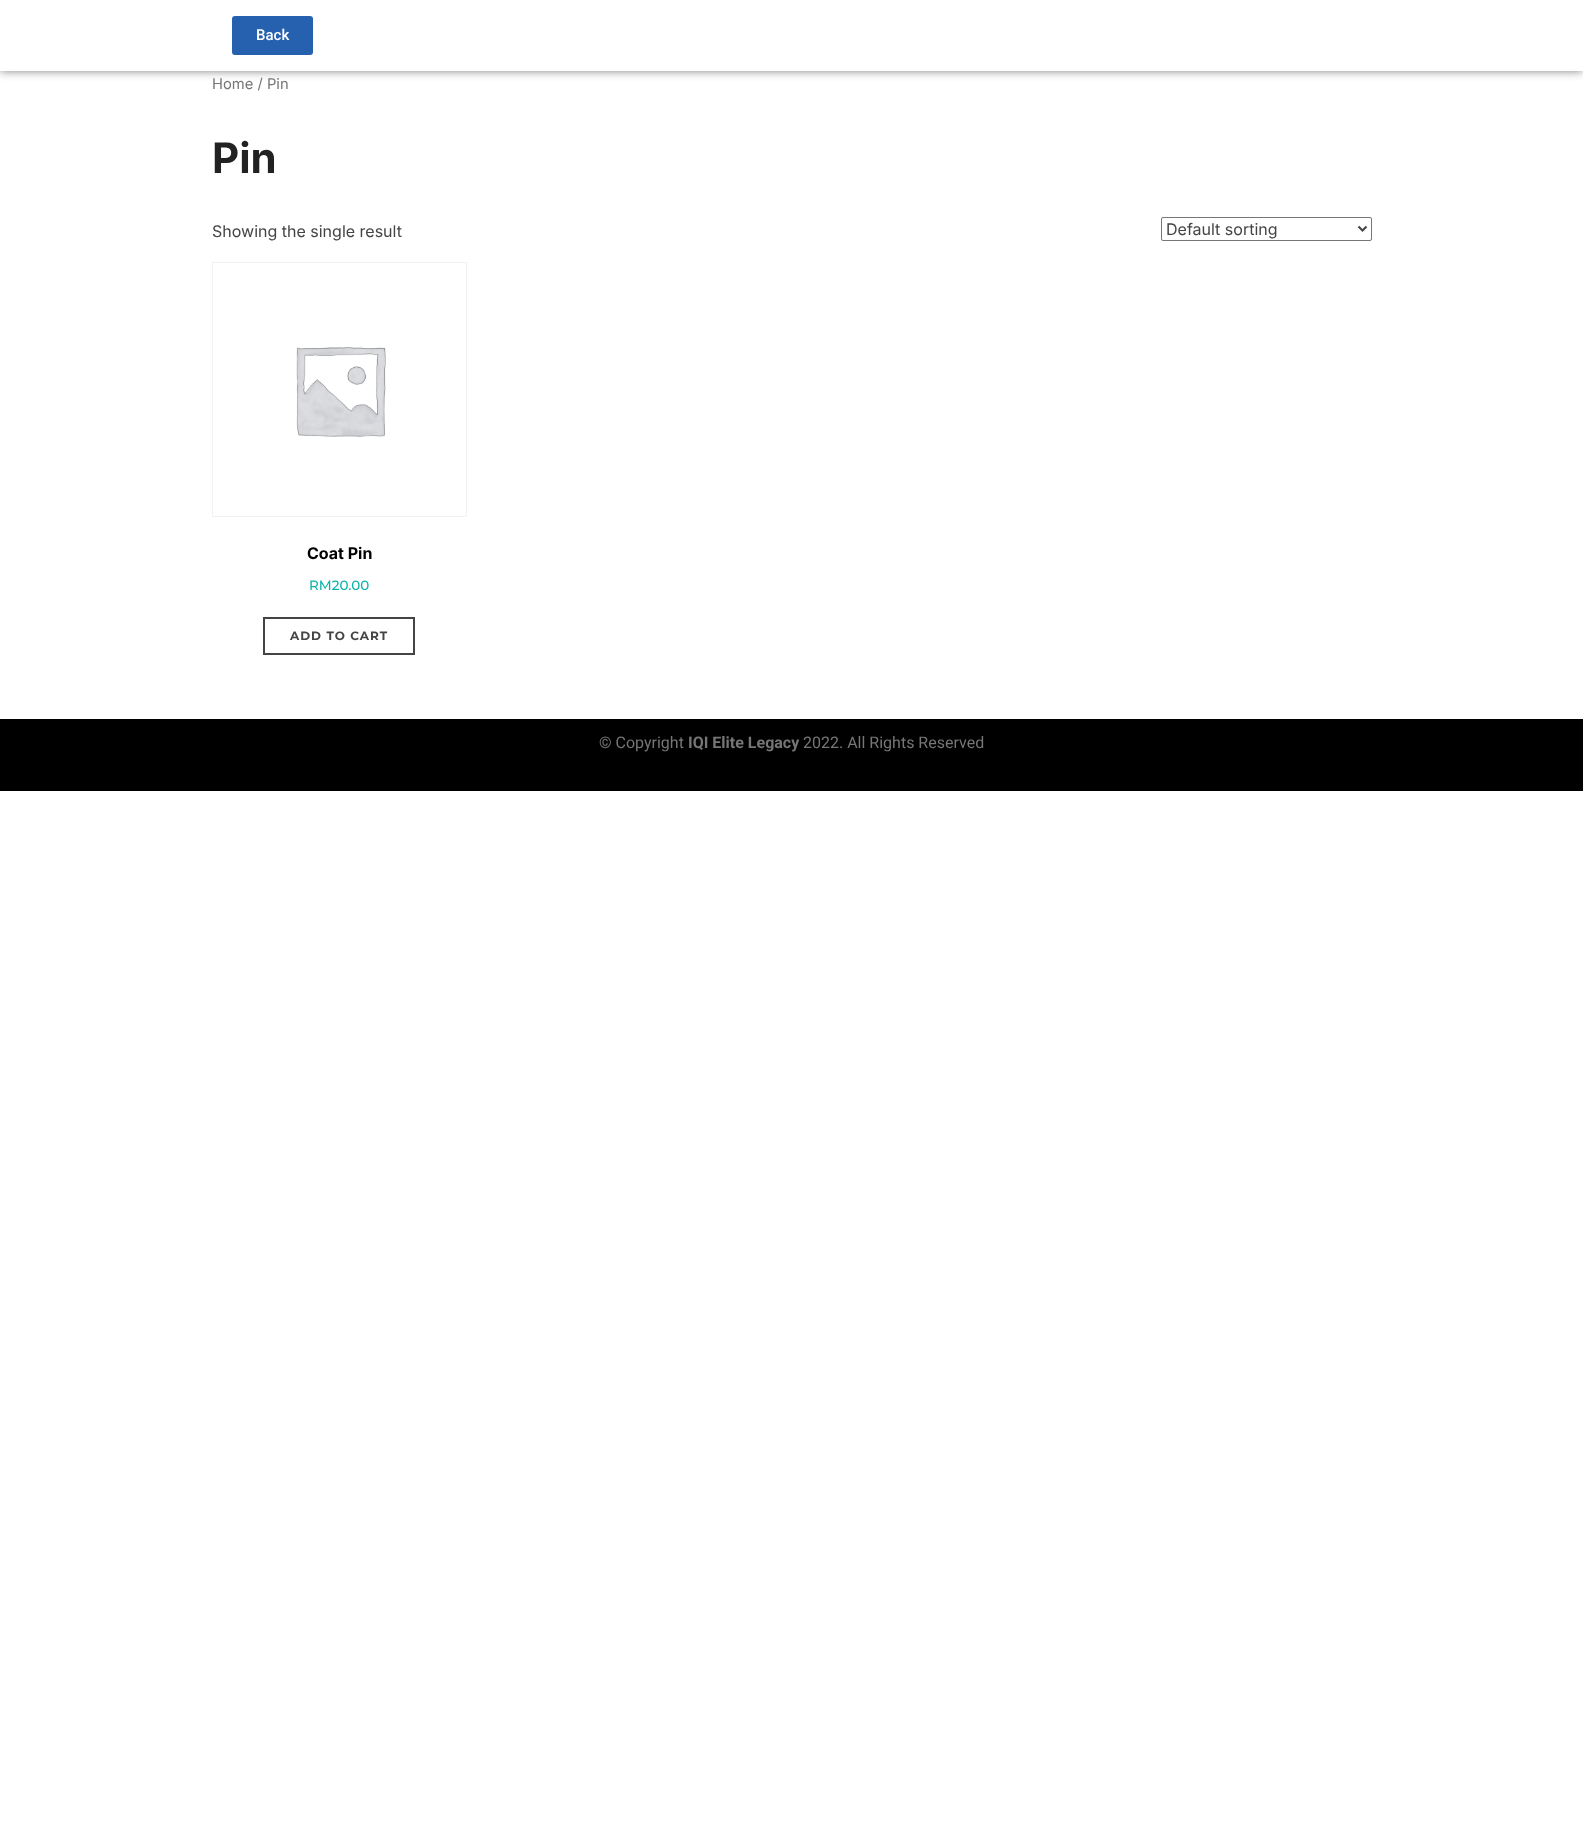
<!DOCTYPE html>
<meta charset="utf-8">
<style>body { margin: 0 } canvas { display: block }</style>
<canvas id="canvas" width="1583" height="1848"></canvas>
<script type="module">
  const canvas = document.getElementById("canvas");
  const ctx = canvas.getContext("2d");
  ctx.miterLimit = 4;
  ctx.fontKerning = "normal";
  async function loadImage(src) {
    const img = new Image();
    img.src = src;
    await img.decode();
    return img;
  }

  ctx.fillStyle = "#ffffff";
  ctx.fillRect(0, 0, 1583, 1848);
  ctx.fillStyle = "rgba(0, 0, 0, 0.5)";
  ctx.filter = "blur(5px)";
  ctx.beginPath();
  ctx.rect(0, 0, 1583, 71);
  ctx.fill();
  ctx.filter = "none";
  ctx.fillStyle = "#ffffff";
  ctx.fillRect(0, 0, 1583, 71);
  ctx.fillStyle = "#2561af";
  ctx.beginPath();
  ctx.roundRect(232, 16, 81, 39, 3);
  ctx.fill();
  ctx.font = "500 15px Roboto";
  ctx.fillStyle = "#ffffff";
  ctx.fillText("Back", 256, 40);
  ctx.font = "14.75px Inter";
  ctx.fillStyle = "#767676";
  ctx.fillText("Home / Pin", 212, 89);
  ctx.font = "bold 42px Inter";
  ctx.fillStyle = "#222222";
  ctx.fillText("Pin", 212, 173);
  ctx.font = "16px Inter";
  ctx.fillStyle = "#444444";
  ctx.fillText("Showing the single result", 212, 237);
  ctx.beginPath();
  ctx.roundRect(1161.5, 217.5, 210, 23, 1.5);
  ctx.strokeStyle = "#767676";
  ctx.stroke();
  ctx.beginPath();
  ctx.moveTo(1358.5, 226.5);
  ctx.lineTo(1362.5, 230.5);
  ctx.lineTo(1366.5, 226.5);
  ctx.strokeStyle = "#444444";
  ctx.lineWidth = 2;
  ctx.stroke();
  ctx.fillText("Default sorting", 1166, 235);
  ctx.strokeStyle = "#f2f2f2";
  ctx.lineWidth = 1;
  ctx.strokeRect(212.5, 262.5, 254, 254);
  ctx.drawImage(await loadImage("img1.png"), 296, 347, 90, 90);
  ctx.font = "bold 16px Inter";
  ctx.fillStyle = "#000000";
  ctx.fillText("Coat Pin", 307, 559);
  ctx.font = "500 13.5px Montserrat";
  ctx.fillStyle = "#0bb4aa";
  ctx.fillText("RM20.00", 309, 590);
  ctx.strokeStyle = "#444444";
  ctx.lineWidth = 2;
  ctx.strokeRect(264, 618, 150, 36);
  ctx.letterSpacing = "1px";
  ctx.font = "bold 12px Montserrat";
  ctx.fillStyle = "#444444";
  ctx.fillText("ADD TO CART", 290, 640);
  ctx.fillStyle = "#000000";
  ctx.fillRect(0, 719, 1583, 72);
  ctx.letterSpacing = "0px";
  ctx.font = "16px Roboto";
  ctx.fillStyle = "#767676";
  ctx.fillText("© Copyright", 599, 748);
  ctx.font = "bold 16px Roboto";
  ctx.fillText("IQI Elite Legacy", 688, 748);
  ctx.font = "16px Roboto";
  ctx.fillText("2022. All Rights Reserved", 803, 748);
</script>
